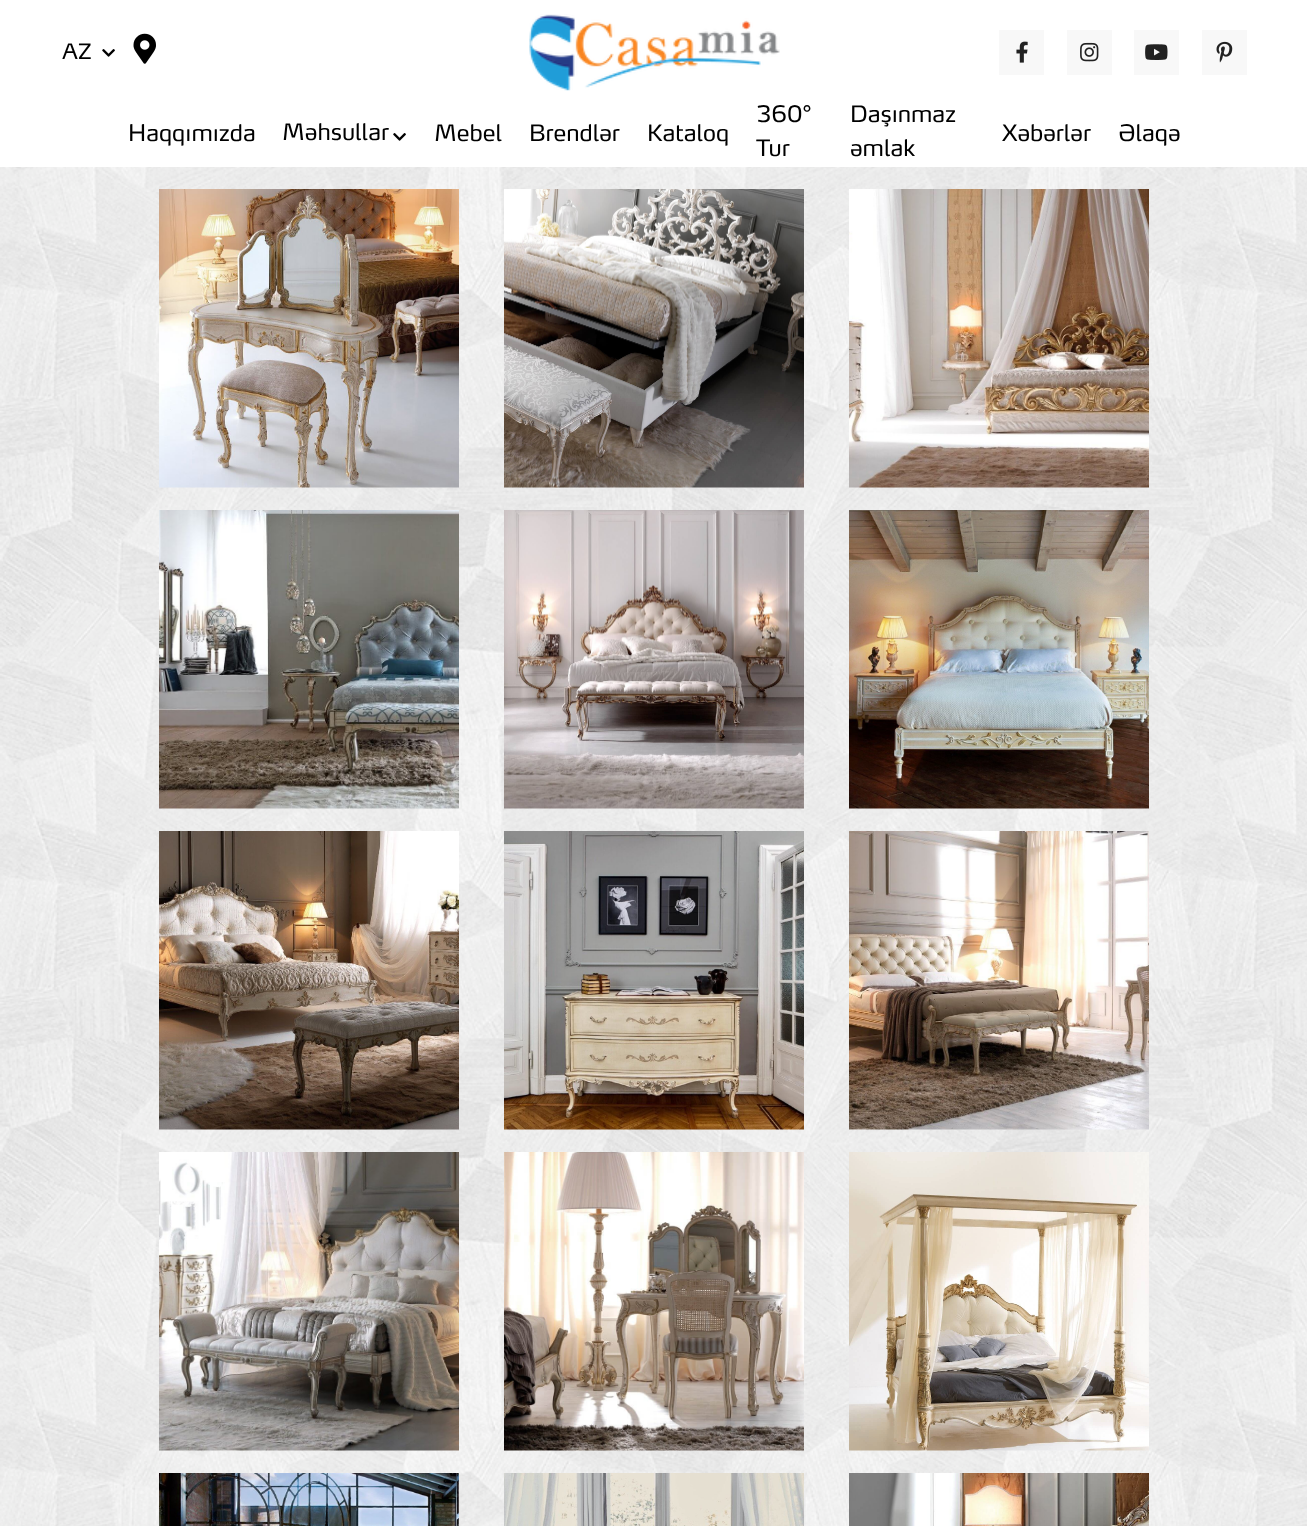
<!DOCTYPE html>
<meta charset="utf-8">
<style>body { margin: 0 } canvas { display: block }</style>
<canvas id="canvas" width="1307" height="1526"></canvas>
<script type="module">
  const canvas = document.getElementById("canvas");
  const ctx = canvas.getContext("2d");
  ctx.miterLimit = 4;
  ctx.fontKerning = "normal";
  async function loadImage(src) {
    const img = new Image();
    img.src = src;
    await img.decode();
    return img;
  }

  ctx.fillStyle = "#ffffff";
  ctx.fillRect(0, 0, 1307, 1526);
  ctx.drawImage(await loadImage("img1.png"), 0, 167, 1307, 1359);
  ctx.font = "21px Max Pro";
  ctx.fillStyle = "#000000";
  ctx.fillText("AZ", 62, 59);
  ctx.drawImage(await loadImage("img2.png"), 102, 49, 13, 8);
  ctx.drawImage(await loadImage("img3.png"), 133, 33, 23, 31);
  ctx.drawImage(await loadImage("img4.png"), 529, 14, 251, 77);
  ctx.fillStyle = "#f8f8f8";
  ctx.fillRect(999, 30, 45, 45);
  ctx.drawImage(await loadImage("img5.png"), 1016, 41, 12, 22);
  ctx.fillRect(1067, 30, 45, 45);
  ctx.drawImage(await loadImage("img6.png"), 1080, 42, 19, 20);
  ctx.fillRect(1134, 30, 45, 45);
  ctx.drawImage(await loadImage("img7.png"), 1145, 44, 23, 16);
  ctx.fillRect(1202, 30, 45, 45);
  ctx.drawImage(await loadImage("img8.png"), 1216, 41, 17, 22);
  ctx.font = "22.5px Max Pro";
  ctx.fillStyle = "#000000";
  ctx.fillText("Haqqımızda", 128, 141);
  ctx.fillText("Məhsullar", 282, 140);
  ctx.drawImage(await loadImage("img2.png"), 393, 133, 13, 8);
  ctx.fillText("Mebel", 434, 141);
  ctx.fillText("Brendlər", 529, 141);
  ctx.fillText("Kataloq", 647, 141);
  ctx.fillText("360°", 756, 122);
  ctx.fillText("Tur", 756, 156);
  ctx.fillText("Daşınmaz", 850, 122);
  ctx.fillText("əmlak", 850, 156);
  ctx.fillText("Xəbərlər", 1002, 141);
  ctx.fillText("Əlaqə", 1118, 141);
  ctx.drawImage(await loadImage("img9.png"), 159, 189, 300, 299);
  ctx.drawImage(await loadImage("img10.png"), 504, 189, 300, 299);
  ctx.drawImage(await loadImage("img11.png"), 849, 189, 300, 299);
  ctx.drawImage(await loadImage("img12.png"), 159, 510, 300, 299);
  ctx.drawImage(await loadImage("img13.png"), 504, 510, 300, 299);
  ctx.drawImage(await loadImage("img14.png"), 849, 510, 300, 299);
  ctx.drawImage(await loadImage("img15.png"), 159, 831, 300, 299);
  ctx.drawImage(await loadImage("img16.png"), 504, 831, 300, 299);
  ctx.drawImage(await loadImage("img17.png"), 849, 831, 300, 299);
  ctx.drawImage(await loadImage("img18.png"), 159, 1152, 300, 299);
  ctx.drawImage(await loadImage("img19.png"), 504, 1152, 300, 299);
  ctx.drawImage(await loadImage("img20.png"), 849, 1152, 300, 299);
  ctx.drawImage(await loadImage("img21.png"), 159, 1473, 300, 53);
  ctx.drawImage(await loadImage("img22.png"), 504, 1473, 300, 53);
  ctx.drawImage(await loadImage("img23.png"), 849, 1473, 300, 53);
</script>
